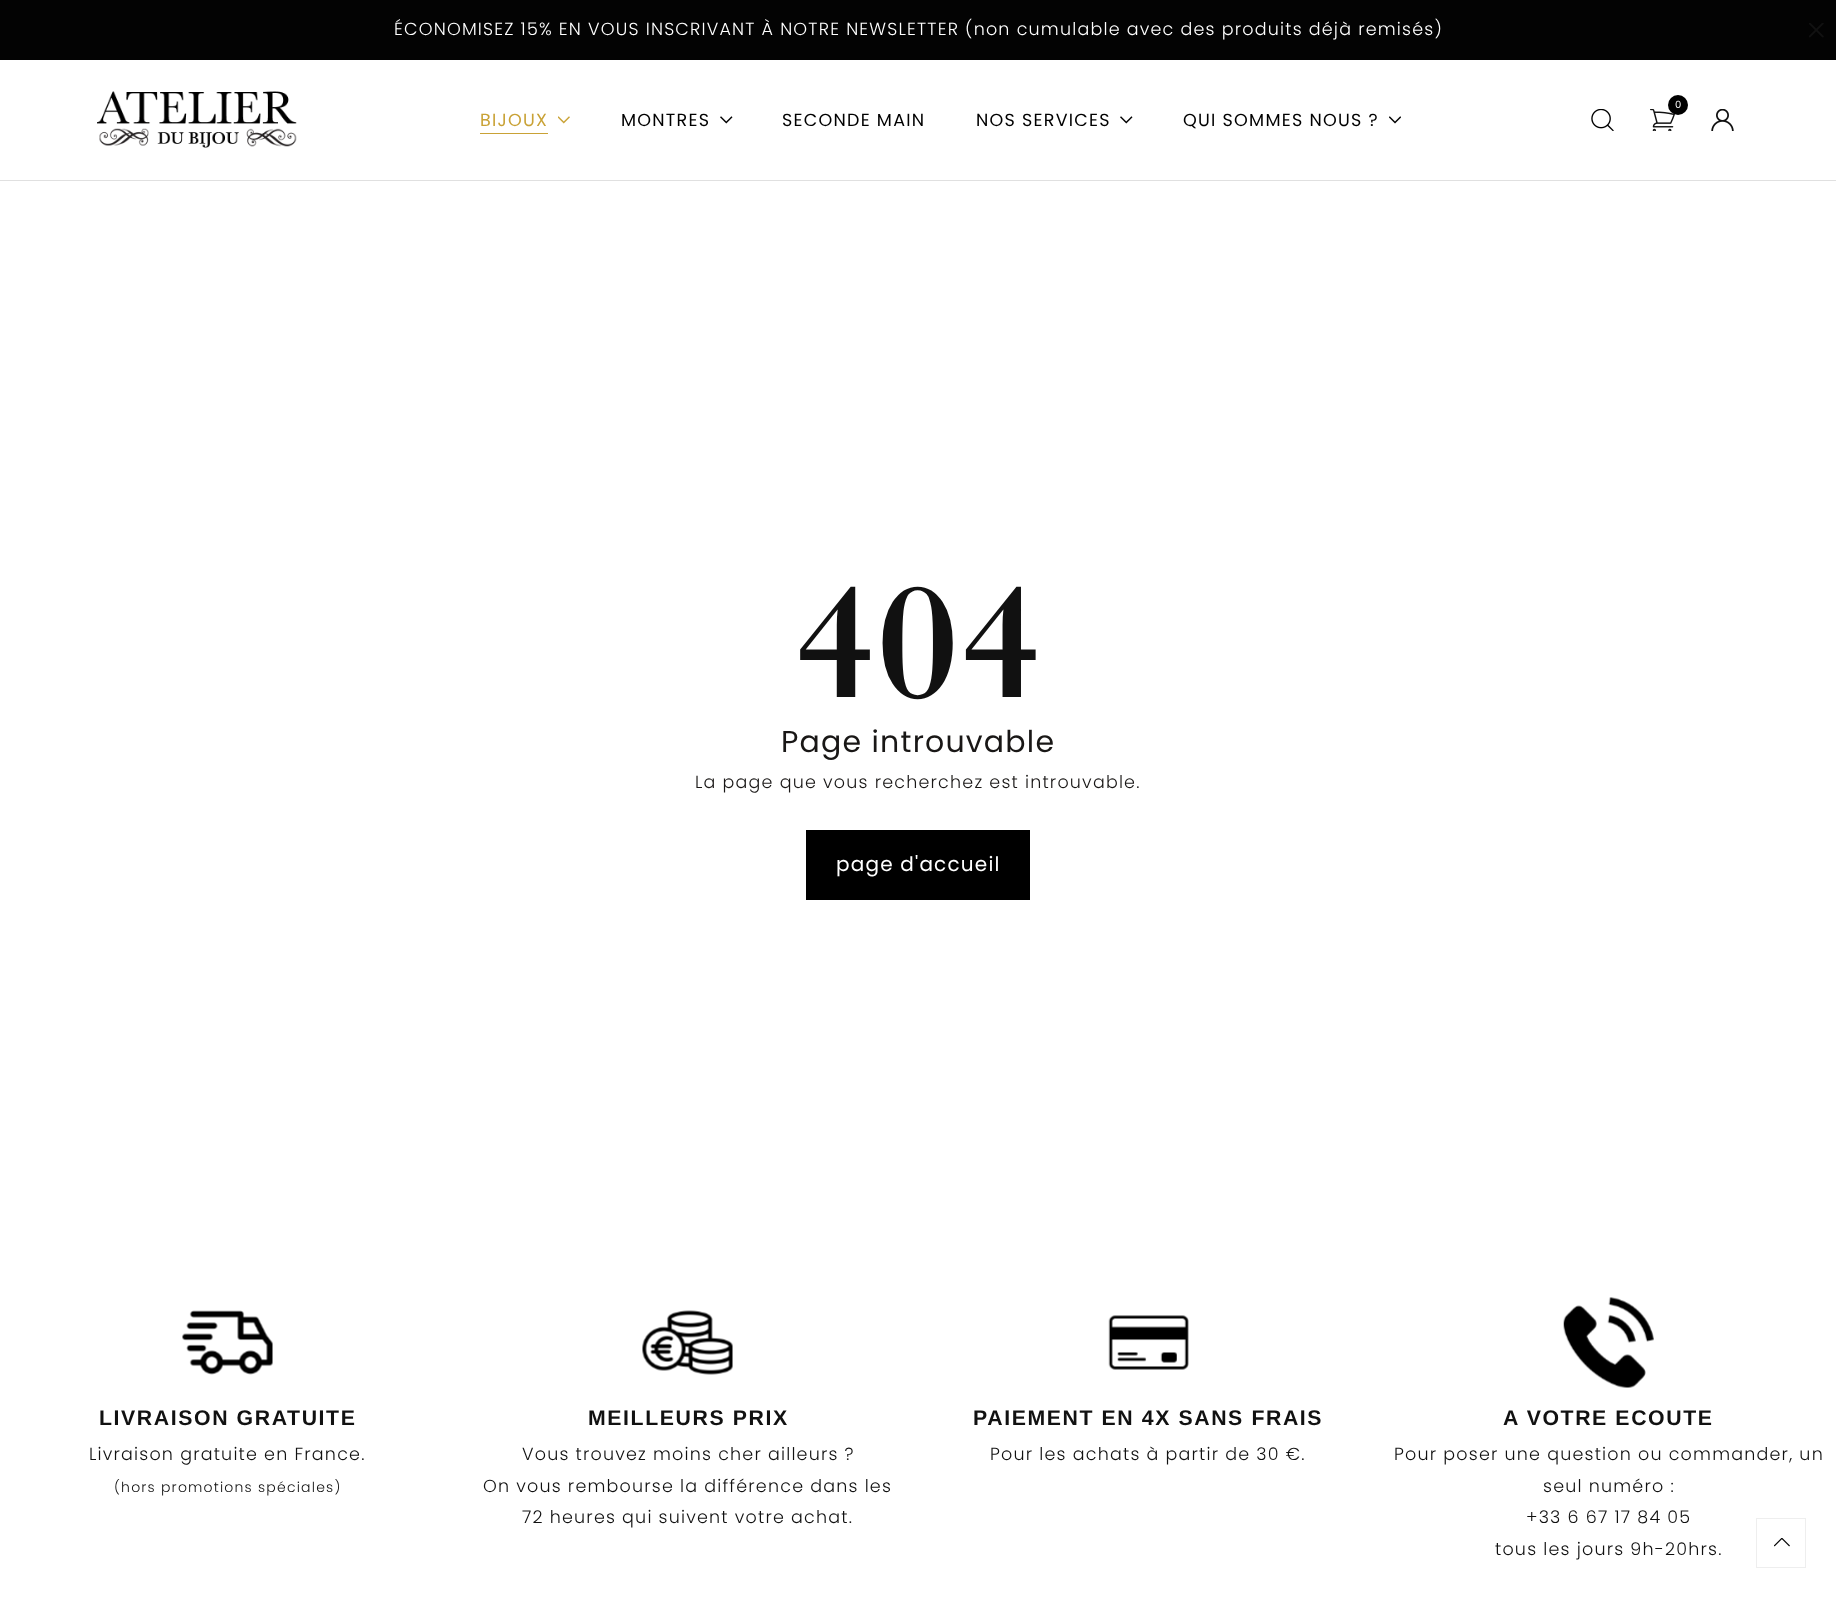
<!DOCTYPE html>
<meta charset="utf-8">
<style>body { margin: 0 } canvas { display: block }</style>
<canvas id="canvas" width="1836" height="1597"></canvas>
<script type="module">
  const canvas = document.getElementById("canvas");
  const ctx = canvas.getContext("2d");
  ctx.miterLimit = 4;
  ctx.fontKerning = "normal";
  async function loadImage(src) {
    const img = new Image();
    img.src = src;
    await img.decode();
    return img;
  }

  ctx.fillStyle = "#ffffff";
  ctx.fillRect(0, 0, 1836, 1597);
  ctx.fillStyle = "#030303";
  ctx.fillRect(0, 0, 1836, 60);
  ctx.letterSpacing = "1.2px";
  ctx.font = "300 17.5px Poppins";
  ctx.fillStyle = "#ffffff";
  ctx.fillText("ÉCONOMISEZ 15% EN VOUS INSCRIVANT À NOTRE NEWSLETTER (non cumulable avec des produits déjà remisés)", 394, 35);
  ctx.drawImage(await loadImage("img1.png"), 1809, 23, 15, 15);
  ctx.fillStyle = "#e0e0e0";
  ctx.fillRect(0, 180, 1836, 1);
  ctx.drawImage(await loadImage("img2.png"), 97, 91, 200, 57);
  ctx.drawImage(await loadImage("img3.png"), 1650, 109, 25, 22);
  ctx.fillStyle = "#000000";
  ctx.beginPath();
  ctx.arc(1678, 105, 10, 0, Math.PI * 2);
  ctx.fill();
  ctx.font = "10px Poppins";
  ctx.fillStyle = "#ffffff";
  ctx.fillText("0", 1675, 108);
  ctx.letterSpacing = "1.25px";
  ctx.font = "17.5px Poppins";
  ctx.fillStyle = "#c9a236";
  ctx.fillText("BIJOUX", 480, 126);
  ctx.fillRect(480, 133, 68, 1);
  ctx.drawImage(await loadImage("img4.png"), 558, 116, 12, 8);
  ctx.fillStyle = "#000000";
  ctx.fillText("MONTRES", 621, 126);
  ctx.drawImage(await loadImage("img5.png"), 720, 116, 13, 8);
  ctx.fillText("SECONDE MAIN", 782, 126);
  ctx.fillText("NOS SERVICES", 976, 126);
  ctx.drawImage(await loadImage("img5.png"), 1120, 116, 13, 8);
  ctx.fillText("QUI SOMMES NOUS ?", 1183, 126);
  ctx.drawImage(await loadImage("img6.png"), 1389, 116, 12, 8);
  ctx.drawImage(await loadImage("img7.png"), 1591, 109, 23, 22);
  ctx.drawImage(await loadImage("img8.png"), 1711, 109, 23, 22);
  ctx.letterSpacing = "1.6px";
  ctx.font = "bold 150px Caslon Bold";
  ctx.fillStyle = "#111111";
  ctx.fillText("404", 794, 697);
  ctx.letterSpacing = "1.2px";
  ctx.font = "30px Poppins";
  ctx.fillStyle = "#191716";
  ctx.fillText("Page introuvable", 781, 752);
  ctx.font = "300 17.5px Poppins";
  ctx.fillText("La page que vous recherchez est introuvable.", 695, 788);
  ctx.fillStyle = "#000000";
  ctx.fillRect(806, 830, 224, 70);
  ctx.font = "20px Poppins";
  ctx.fillStyle = "#ffffff";
  ctx.fillText("page d'accueil", 836, 871);
  ctx.drawImage(await loadImage("img9.png"), 182, 1310, 91, 65);
  ctx.letterSpacing = "1.6px";
  ctx.font = "bold 21.25px Liberation Sans";
  ctx.fillStyle = "#111111";
  ctx.fillText("LIVRAISON GRATUITE", 99, 1425);
  ctx.letterSpacing = "1.2px";
  ctx.font = "300 17.5px Poppins";
  ctx.fillText("Livraison gratuite en France.", 89, 1460);
  ctx.font = "300 14px Poppins";
  ctx.fillText("(hors promotions spéciales)", 114, 1492);
  ctx.drawImage(await loadImage("img10.png"), 642, 1310, 91, 65);
  ctx.letterSpacing = "1.6px";
  ctx.font = "bold 21.25px Liberation Sans";
  ctx.fillText("MEILLEURS PRIX", 588, 1425);
  ctx.letterSpacing = "1.2px";
  ctx.font = "300 17.5px Poppins";
  ctx.fillText("Vous trouvez moins cher ailleurs ?", 522, 1460);
  ctx.fillText("On vous rembourse la différence dans les", 483, 1492);
  ctx.fillText("72 heures qui suivent votre achat.", 522, 1523);
  ctx.drawImage(await loadImage("img11.png"), 1108, 1315, 81, 55);
  ctx.letterSpacing = "1.6px";
  ctx.font = "bold 21.25px Liberation Sans";
  ctx.fillText("PAIEMENT EN 4X SANS FRAIS", 973, 1425);
  ctx.letterSpacing = "1.2px";
  ctx.font = "300 17.5px Poppins";
  ctx.fillText("Pour les achats à partir de 30 €.", 990, 1460);
  ctx.drawImage(await loadImage("img12.png"), 1563, 1297, 91, 91);
  ctx.letterSpacing = "1.6px";
  ctx.font = "bold 21.25px Liberation Sans";
  ctx.fillText("A VOTRE ECOUTE", 1503, 1425);
  ctx.letterSpacing = "1.2px";
  ctx.font = "300 17.5px Poppins";
  ctx.fillText("Pour poser une question ou commander, un", 1394, 1460);
  ctx.fillText("seul numéro :", 1543, 1492);
  ctx.fillText("+33 6 67 17 84 05", 1526, 1523);
  ctx.fillText("tous les jours 9h-20hrs.", 1495, 1555);
  ctx.strokeStyle = "#eeeeee";
  ctx.strokeRect(1756.5, 1518.5, 49, 49);
  ctx.drawImage(await loadImage("img13.png"), 1774, 1538, 16, 9);
</script>
